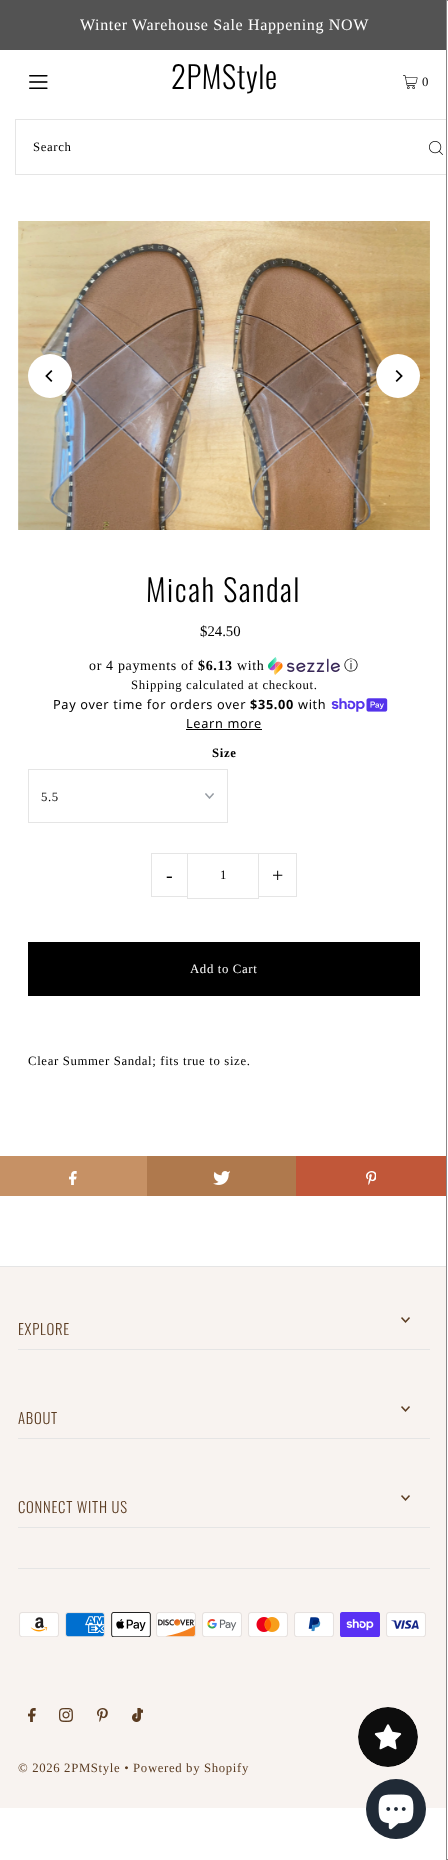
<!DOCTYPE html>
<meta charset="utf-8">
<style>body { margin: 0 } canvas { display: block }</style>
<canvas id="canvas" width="448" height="1860"></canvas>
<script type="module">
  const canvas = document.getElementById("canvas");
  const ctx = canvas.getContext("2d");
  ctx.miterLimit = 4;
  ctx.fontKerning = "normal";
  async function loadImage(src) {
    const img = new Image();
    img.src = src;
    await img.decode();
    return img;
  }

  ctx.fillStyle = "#ffffff";
  ctx.fillRect(0, 0, 448, 1860);
  ctx.fillStyle = "#535353";
  ctx.fillRect(0, 0, 446, 50);
  ctx.letterSpacing = "0.65px";
  ctx.font = "16px Liberation Serif";
  ctx.fillStyle = "#ffffff";
  ctx.fillText("Winter Warehouse Sale Happening NOW", 80, 30);
  ctx.drawImage(await loadImage("img1.png"), 29, 75, 19, 14);
  ctx.font = "300 30.5px Oswald";
  ctx.fillStyle = "#000000";
  ctx.fillText("2PMStyle", 171, 89);
  ctx.drawImage(await loadImage("img2.png"), 403, 75, 15, 14);
  ctx.font = "12.75px Liberation Serif";
  ctx.fillText("0", 422, 86);
  ctx.strokeStyle = "#e5e5e5";
  ctx.strokeRect(15.5, 119.5, 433, 55);
  ctx.fillText("Search", 33, 151);
  ctx.drawImage(await loadImage("img3.png"), 429, 141, 14, 14);
  ctx.drawImage(await loadImage("img4.png"), 18, 221, 412, 309);
  ctx.fillStyle = "#ffffff";
  ctx.beginPath();
  ctx.arc(50, 376, 22, 0, Math.PI * 2);
  ctx.fill();
  ctx.drawImage(await loadImage("img5.png"), 45, 370, 8, 12);
  ctx.beginPath();
  ctx.arc(398, 376, 22, 0, Math.PI * 2);
  ctx.fill();
  ctx.drawImage(await loadImage("img6.png"), 395, 370, 8, 12);
  ctx.letterSpacing = "1.5px";
  ctx.font = "300 30.5px Oswald";
  ctx.fillStyle = "#000000";
  ctx.fillText("Micah Sandal", 146, 602);
  ctx.letterSpacing = "0px";
  ctx.font = "14.75px Liberation Serif";
  ctx.fillText("$24.50", 200, 636);
  ctx.letterSpacing = "0.65px";
  ctx.font = "14px Liberation Serif";
  ctx.fillText("or 4 payments of", 89, 670);
  ctx.font = "bold 14px Liberation Serif";
  ctx.fillText("$6.13", 198, 670);
  ctx.font = "14px Liberation Serif";
  ctx.fillText("with", 237, 670);
  ctx.drawImage(await loadImage("img7.png"), 268, 657, 72, 18);
  ctx.font = "500 14px WenQuanYi Zen Hei";
  ctx.fillText("ⓘ", 344, 670);
  ctx.font = "12.75px Liberation Serif";
  ctx.fillText("Shipping calculated at checkout.", 131, 689);
  ctx.font = "12.75px Noto Sans";
  ctx.fillText("Pay over time for orders over", 53, 709);
  ctx.font = "bold 12.75px Noto Sans";
  ctx.fillText("$35.00", 250, 709);
  ctx.font = "12.75px Noto Sans";
  ctx.fillText("with", 298, 709);
  ctx.drawImage(await loadImage("img8.png"), 331, 698, 57, 14);
  ctx.fillText("Learn more", 186, 728);
  ctx.fillRect(186, 729, 76, 1);
  ctx.font = "bold 12.75px Liberation Serif";
  ctx.fillText("Size", 212, 757);
  ctx.drawImage(await loadImage("img9.png"), 205, 793, 9, 6);
  ctx.strokeRect(28.5, 769.5, 199, 53);
  ctx.font = "12.75px Liberation Serif";
  ctx.fillText("5.5", 41, 801);
  ctx.fillStyle = "#e5e5e5";
  ctx.fillRect(151, 853, 38, 1);
  ctx.fillRect(151, 896, 38, 1);
  ctx.fillRect(151, 853, 1, 44);
  ctx.letterSpacing = "1px";
  ctx.font = "20px Liberation Serif";
  ctx.fillStyle = "#000000";
  ctx.fillText("-", 166, 882);
  ctx.fillStyle = "#ffffff";
  ctx.fillRect(188, 896, 1, 1);
  ctx.strokeRect(187.5, 853.5, 71, 45);
  ctx.letterSpacing = "0.65px";
  ctx.font = "12.75px Liberation Serif";
  ctx.fillStyle = "#000000";
  ctx.fillText("1", 220, 879);
  ctx.fillStyle = "#e5e5e5";
  ctx.fillRect(259, 853, 38, 1);
  ctx.fillRect(296, 853, 1, 44);
  ctx.fillRect(259, 896, 38, 1);
  ctx.letterSpacing = "1px";
  ctx.font = "20px Liberation Serif";
  ctx.fillStyle = "#000000";
  ctx.fillText("+", 272, 882);
  ctx.fillRect(28, 942, 392, 54);
  ctx.letterSpacing = "0.65px";
  ctx.font = "12.75px Liberation Serif";
  ctx.fillStyle = "#ffffff";
  ctx.fillText("Add to Cart", 190, 973);
  ctx.fillStyle = "#000000";
  ctx.fillText("Clear Summer Sandal; fits true to size.", 28, 1065);
  ctx.fillStyle = "#c69165";
  ctx.fillRect(0, 1156, 147, 40);
  ctx.drawImage(await loadImage("img10.png"), 69, 1171, 8, 14);
  ctx.fillStyle = "#af794d";
  ctx.fillRect(147, 1156, 149, 40);
  ctx.drawImage(await loadImage("img11.png"), 213, 1171, 17, 14);
  ctx.fillStyle = "#c15739";
  ctx.fillRect(296, 1156, 150, 40);
  ctx.drawImage(await loadImage("img12.png"), 366, 1171, 10, 14);
  ctx.fillStyle = "#f8f3f0";
  ctx.fillRect(0, 1267, 446, 541);
  ctx.fillStyle = "#e5e5e5";
  ctx.fillRect(0, 1266, 448, 1);
  ctx.fillRect(18, 1349, 412, 1);
  ctx.drawImage(await loadImage("img13.png"), 401, 1317, 9, 6);
  ctx.letterSpacing = "0.75px";
  ctx.font = "300 14.75px Oswald";
  ctx.fillStyle = "#5a3b21";
  ctx.fillText("EXPLORE", 18, 1335);
  ctx.fillStyle = "#e5e5e5";
  ctx.fillRect(18, 1438, 412, 1);
  ctx.drawImage(await loadImage("img13.png"), 401, 1406, 9, 6);
  ctx.fillStyle = "#5a3b21";
  ctx.fillText("ABOUT", 18, 1424);
  ctx.fillStyle = "#e5e5e5";
  ctx.fillRect(18, 1527, 412, 1);
  ctx.drawImage(await loadImage("img13.png"), 401, 1495, 9, 6);
  ctx.fillStyle = "#5a3b21";
  ctx.fillText("CONNECT WITH US", 18, 1513);
  ctx.fillStyle = "#e5e5e5";
  ctx.fillRect(18, 1568, 412, 1);
  ctx.drawImage(await loadImage("img14.png"), 19, 1612, 40, 25);
  ctx.drawImage(await loadImage("img15.png"), 65, 1612, 40, 25);
  ctx.drawImage(await loadImage("img16.png"), 111, 1612, 40, 25);
  ctx.drawImage(await loadImage("img17.png"), 156, 1612, 40, 25);
  ctx.drawImage(await loadImage("img18.png"), 202, 1612, 40, 25);
  ctx.drawImage(await loadImage("img19.png"), 248, 1612, 40, 25);
  ctx.drawImage(await loadImage("img20.png"), 294, 1612, 40, 25);
  ctx.drawImage(await loadImage("img21.png"), 340, 1612, 40, 25);
  ctx.drawImage(await loadImage("img22.png"), 386, 1612, 40, 25);
  ctx.drawImage(await loadImage("img23.png"), 28, 1708, 8, 14);
  ctx.drawImage(await loadImage("img24.png"), 59, 1708, 14, 14);
  ctx.drawImage(await loadImage("img25.png"), 97, 1708, 11, 14);
  ctx.drawImage(await loadImage("img26.png"), 132, 1708, 11, 14);
  ctx.letterSpacing = "0.65px";
  ctx.font = "12.75px Liberation Serif";
  ctx.fillStyle = "#5a3b21";
  ctx.fillText("© 2026 2PMStyle • Powered by Shopify", 18, 1772);
  ctx.fillStyle = "#ffffff";
  ctx.fillRect(447, 119, 1, 1148);
  ctx.strokeStyle = "#888888";
  ctx.strokeRect(446.5, 0.5, 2, 1859);
  ctx.drawImage(await loadImage("img27.png"), 358, 1707, 60, 60);
  ctx.fillStyle = "#202a36";
  ctx.beginPath();
  ctx.arc(396, 1809, 30, 0, Math.PI * 2);
  ctx.fill();
  ctx.drawImage(await loadImage("img28.png"), 378, 1794, 36, 36);
</script>
